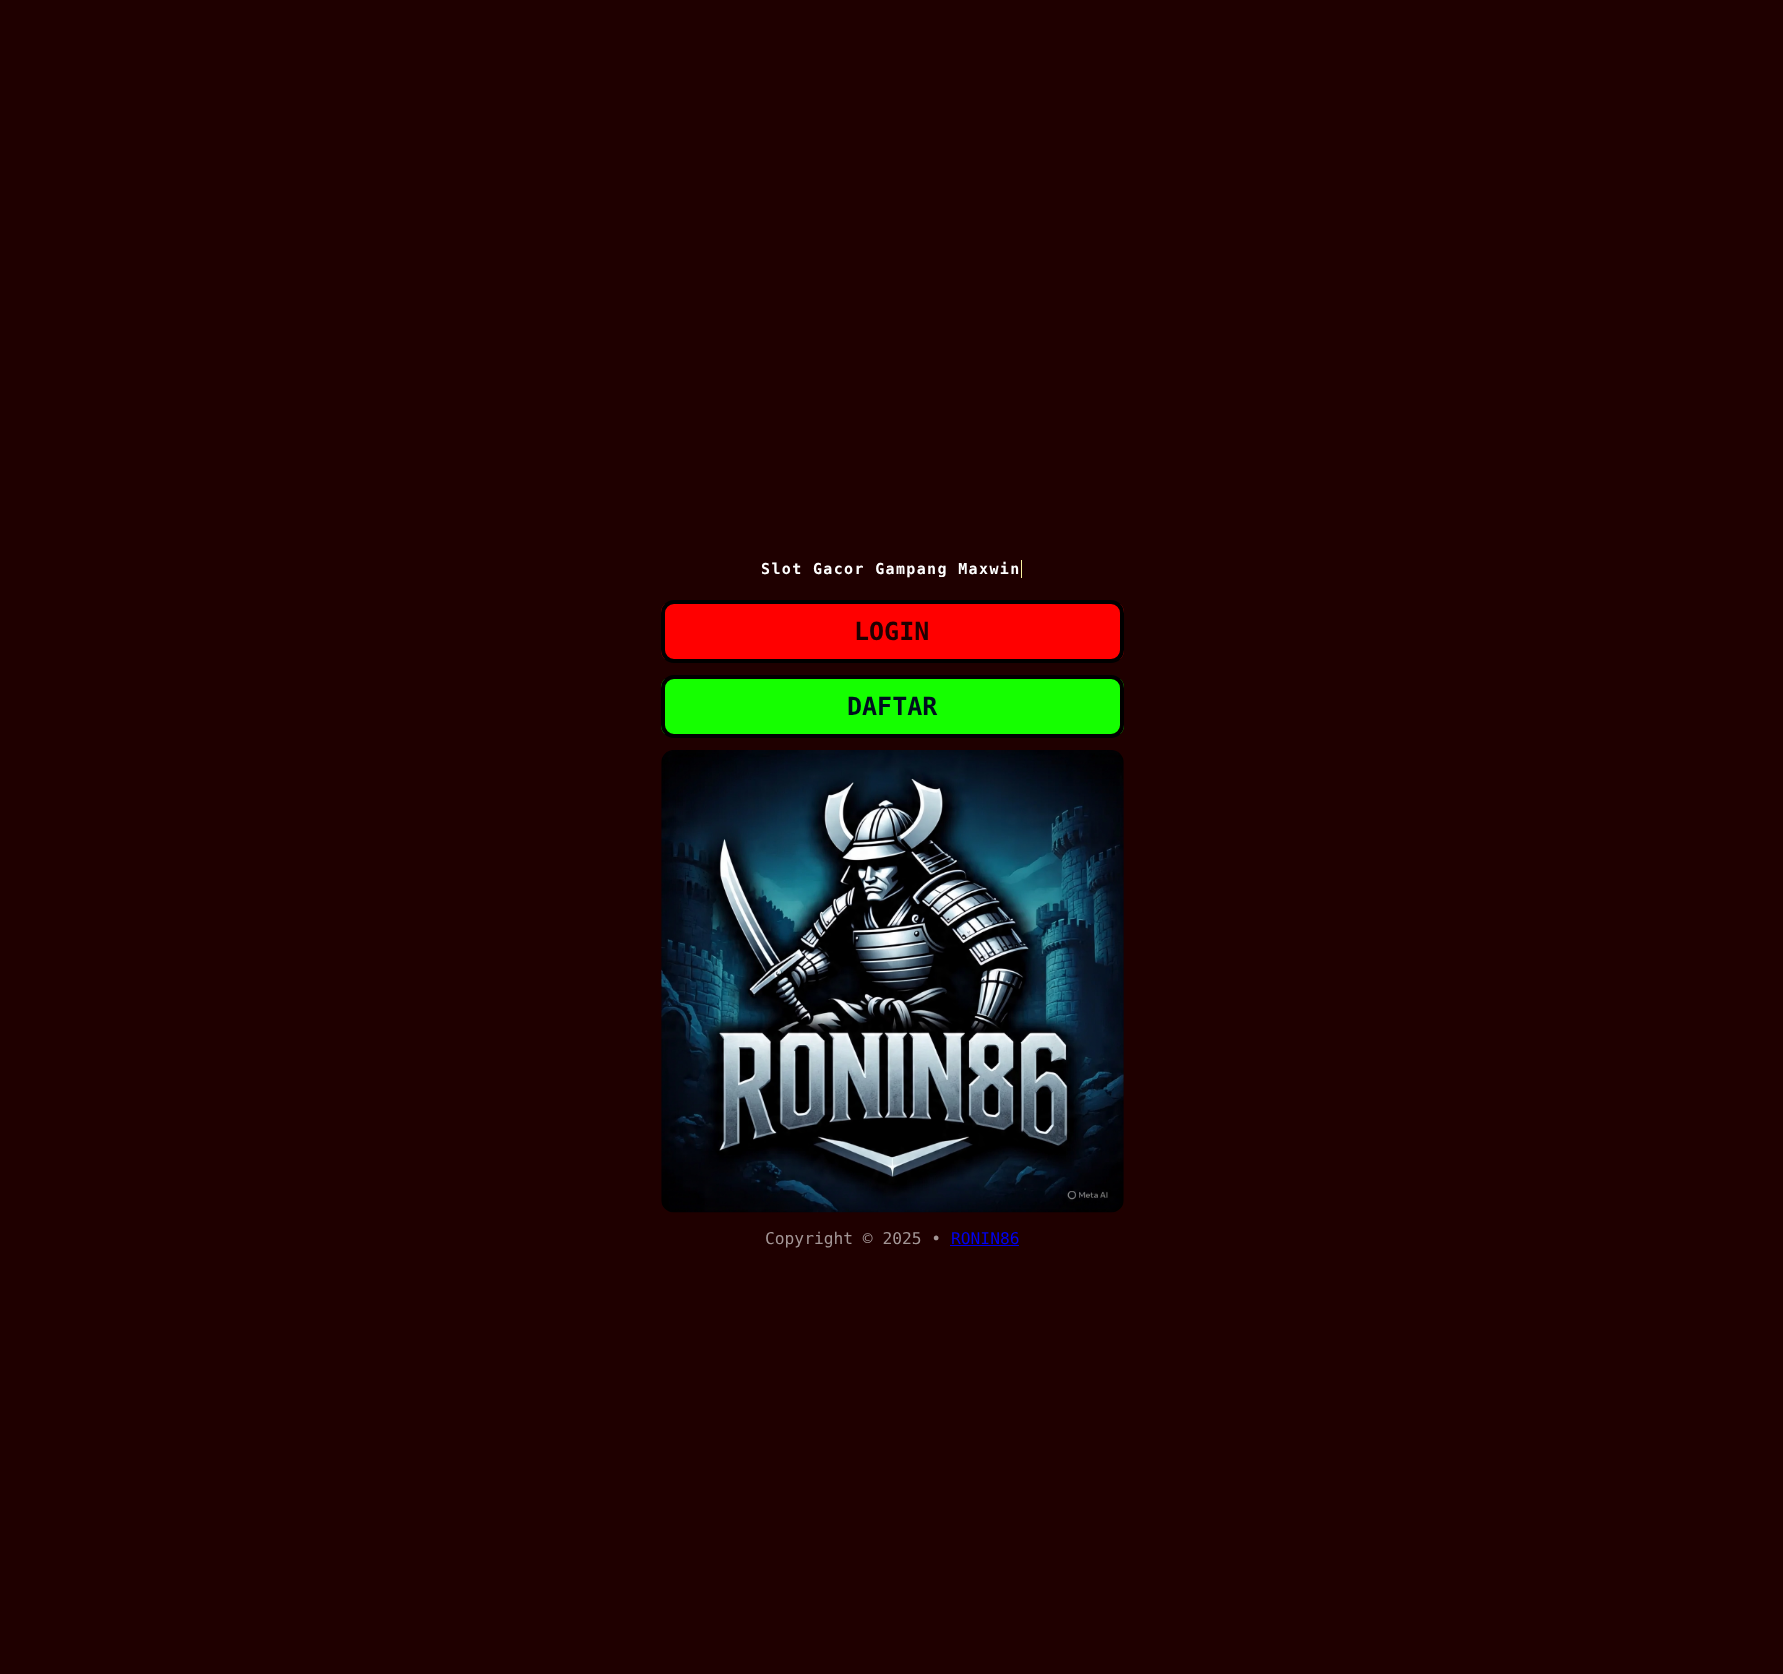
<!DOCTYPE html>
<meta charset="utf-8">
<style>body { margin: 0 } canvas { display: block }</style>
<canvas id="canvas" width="1783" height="1674"></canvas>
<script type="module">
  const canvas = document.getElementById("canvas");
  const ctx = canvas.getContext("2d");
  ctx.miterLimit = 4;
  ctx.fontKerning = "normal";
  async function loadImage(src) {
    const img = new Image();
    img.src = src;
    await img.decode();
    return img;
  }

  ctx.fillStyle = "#1f0000";
  ctx.fillRect(0, 0, 1783, 1674);
  ctx.fillStyle = "#fbf4a0";
  ctx.fillRect(1021, 560, 1, 18);
  ctx.letterSpacing = "1.35px";
  ctx.font = "bold 15px DejaVu Sans Mono";
  ctx.fillStyle = "#ffffff";
  ctx.fillText("Slot Gacor Gampang Maxwin", 761, 574);
  ctx.save();
  ctx.beginPath();
  ctx.roundRect(661, 600, 463, 63, 13);
  ctx.clip();
  ctx.fillStyle = "#ff0000";
  ctx.fillRect(661, 604, 463, 55);
  ctx.restore();
  ctx.beginPath();
  ctx.roundRect(663, 602, 459, 59, 11);
  ctx.strokeStyle = "#000000";
  ctx.lineWidth = 4;
  ctx.stroke();
  ctx.letterSpacing = "0px";
  ctx.font = "bold 25px DejaVu Sans Mono";
  ctx.fillStyle = "#1f0000";
  ctx.fillText("LOGIN", 854, 640);
  ctx.save();
  ctx.beginPath();
  ctx.roundRect(661, 675, 463, 63, 13);
  ctx.clip();
  ctx.fillStyle = "#15ff00";
  ctx.fillRect(661, 679, 463, 55);
  ctx.restore();
  ctx.beginPath();
  ctx.roundRect(663, 677, 459, 59, 11);
  ctx.stroke();
  ctx.fillStyle = "#000e1f";
  ctx.fillText("DAFTAR", 847, 715);
  ctx.drawImage(await loadImage("img1.png"), 661, 750, 463, 463);
  ctx.font = "16.25px DejaVu Sans Mono";
  ctx.fillStyle = "#a39696";
  ctx.fillText("Copyright © 2025 •", 765, 1244);
  ctx.fillStyle = "#0000ee";
  ctx.fillText("RONIN86", 951, 1244);
  ctx.fillRect(950, 1245, 69, 1);
</script>
